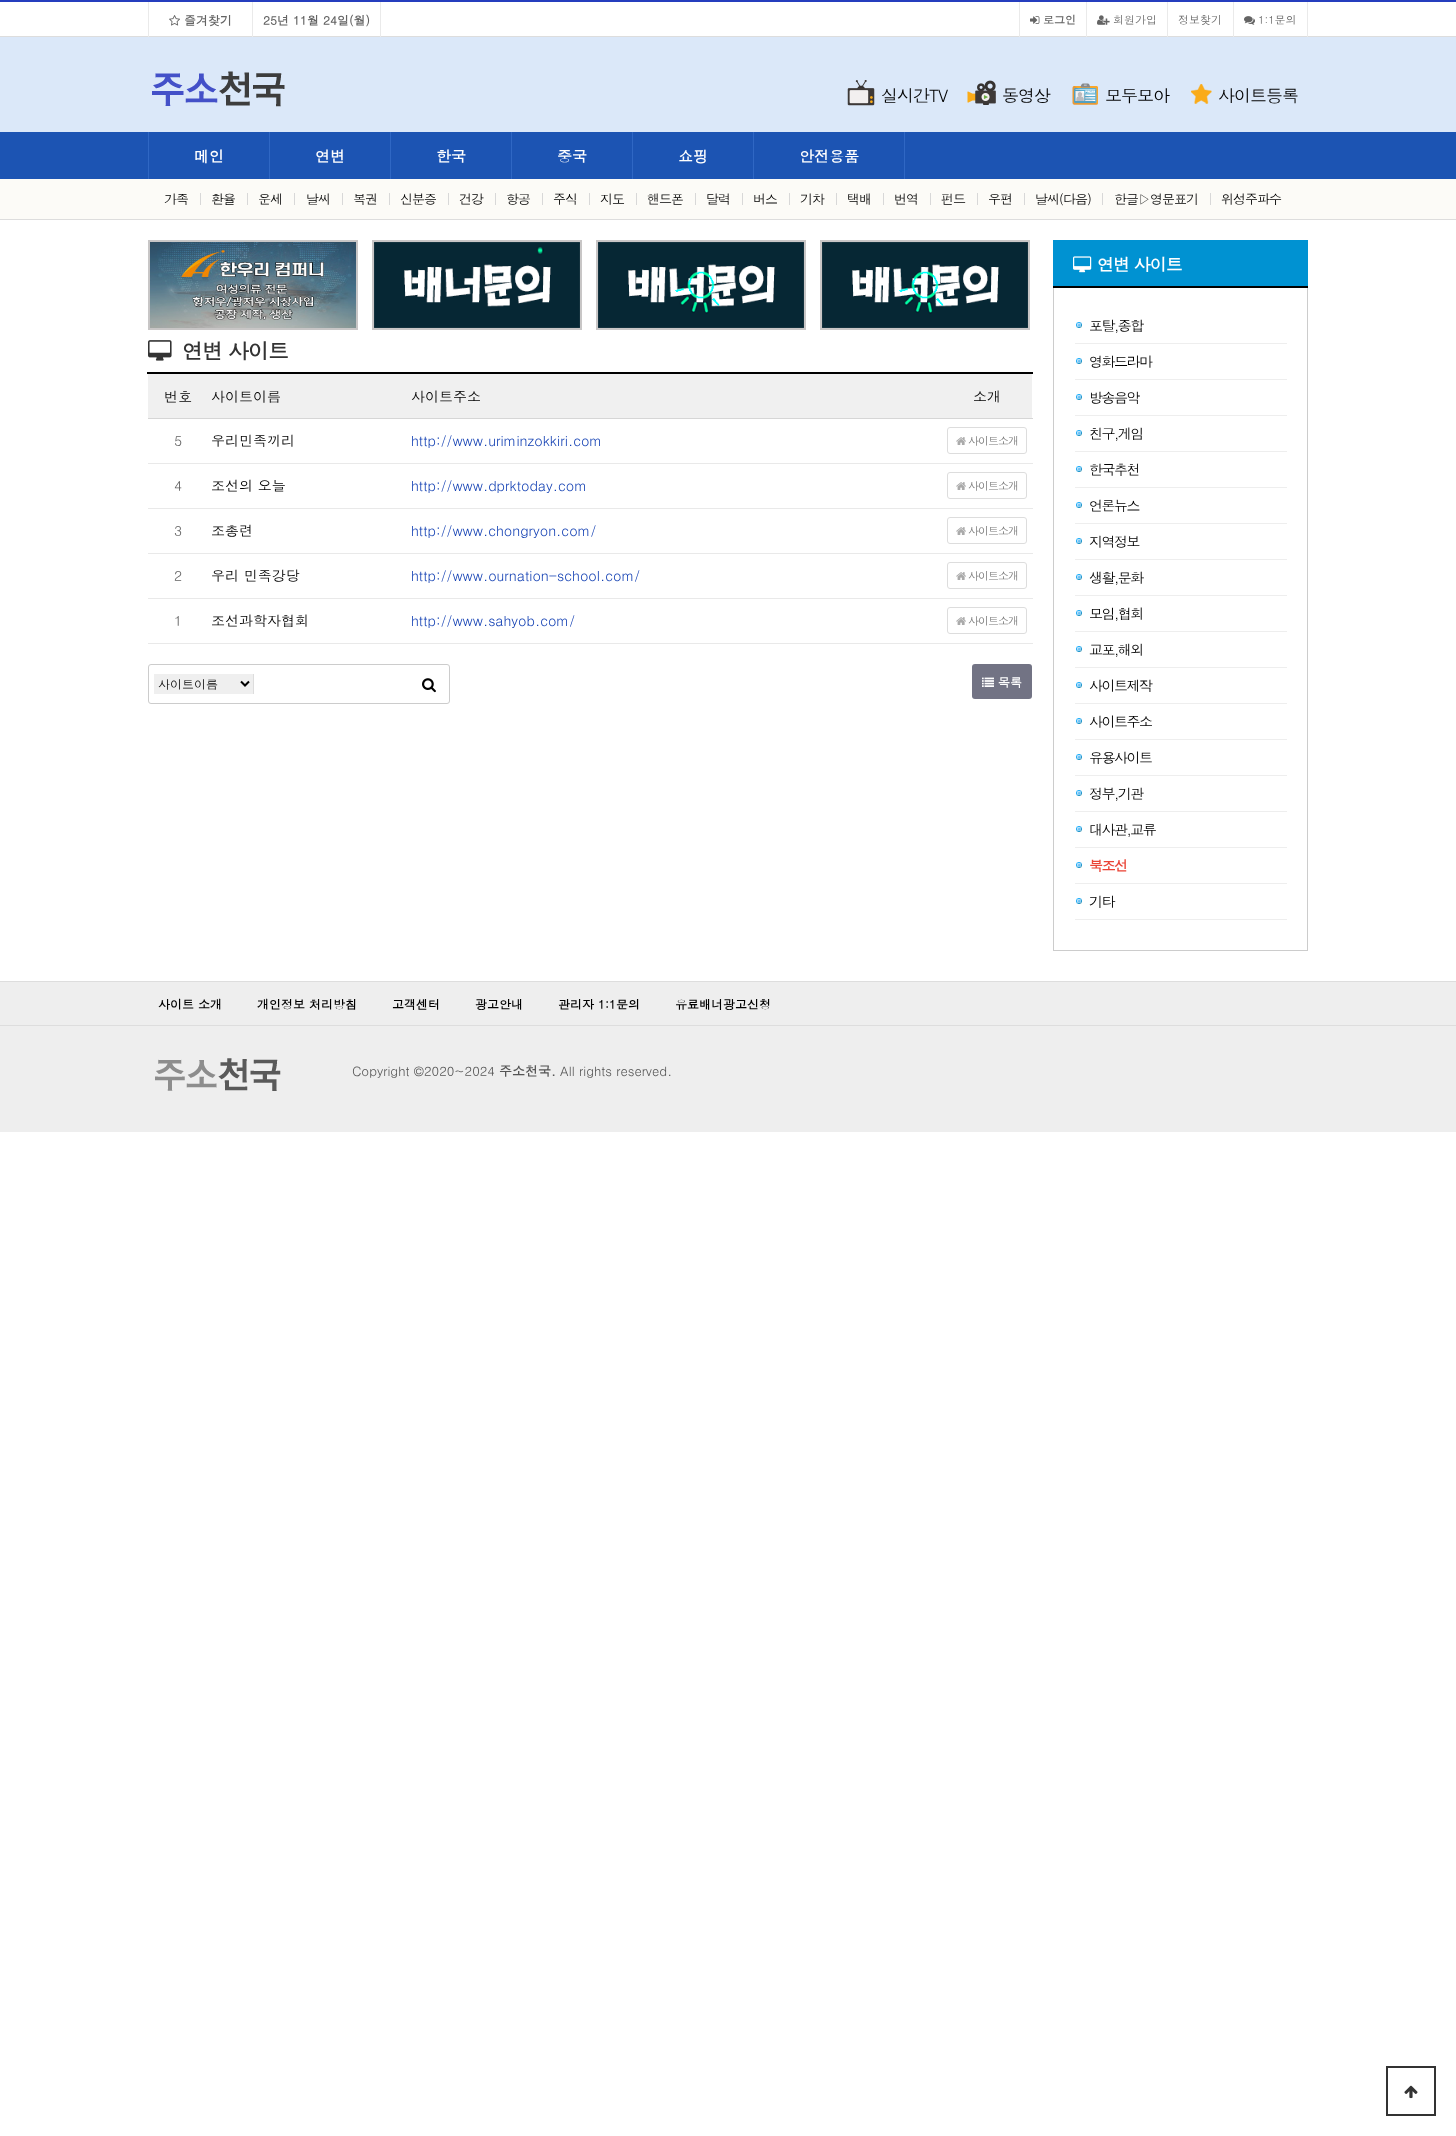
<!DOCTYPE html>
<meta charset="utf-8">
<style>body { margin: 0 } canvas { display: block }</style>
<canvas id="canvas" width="1456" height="2136"></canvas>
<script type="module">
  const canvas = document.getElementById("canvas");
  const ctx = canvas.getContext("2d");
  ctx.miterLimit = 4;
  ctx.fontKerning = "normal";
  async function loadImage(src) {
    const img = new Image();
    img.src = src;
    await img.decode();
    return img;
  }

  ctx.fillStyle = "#ffffff";
  ctx.fillRect(0, 0, 1456, 2136);
  ctx.fillStyle = "#dbe8f9";
  ctx.fillRect(0, 37, 1456, 95);
  ctx.fillStyle = "#253dbe";
  ctx.fillRect(0, 0, 1456, 2);
  ctx.fillStyle = "#dddddd";
  ctx.fillRect(0, 36, 1456, 1);
  ctx.fillStyle = "#eaeaea";
  ctx.fillRect(148, 2, 1, 35);
  ctx.drawImage(await loadImage("img1.png"), 169, 15, 11, 11);
  ctx.font = "bold 12px Dotum";
  ctx.fillStyle = "#646464";
  ctx.fillText("즐겨찾기", 184, 25);
  ctx.fillStyle = "#eaeaea";
  ctx.fillRect(380, 2, 1, 35);
  ctx.fillRect(252, 2, 1, 35);
  ctx.fillStyle = "#646464";
  ctx.fillText("25년 11월 24일(월)", 263, 25);
  ctx.fillStyle = "#eaeaea";
  ctx.fillRect(1019, 2, 1, 35);
  ctx.drawImage(await loadImage("img2.png"), 1030, 16, 10, 8);
  ctx.font = "bold 11px Dotum";
  ctx.fillStyle = "#646464";
  ctx.fillText("로그인", 1043, 24);
  ctx.fillStyle = "#eaeaea";
  ctx.fillRect(1086, 2, 1, 35);
  ctx.drawImage(await loadImage("img3.png"), 1097, 15, 13, 10);
  ctx.font = "11px Dotum";
  ctx.fillStyle = "#646464";
  ctx.fillText("회원가입", 1113, 24);
  ctx.fillStyle = "#eaeaea";
  ctx.fillRect(1167, 2, 1, 35);
  ctx.fillStyle = "#646464";
  ctx.fillText("정보찾기", 1178, 24);
  ctx.fillStyle = "#eaeaea";
  ctx.fillRect(1307, 2, 1, 35);
  ctx.fillRect(1233, 2, 1, 35);
  ctx.drawImage(await loadImage("img4.png"), 1244, 16, 11, 9);
  ctx.fillStyle = "#646464";
  ctx.fillText("1:1문의", 1258, 24);
  ctx.drawImage(await loadImage("img5.png"), 152, 71, 133, 36);
  ctx.drawImage(await loadImage("img6.png"), 847, 80, 28, 26);
  ctx.letterSpacing = "-1px";
  ctx.font = "17px Dotum";
  ctx.fillStyle = "#000000";
  ctx.fillText("실시간TV", 881, 102);
  ctx.drawImage(await loadImage("img7.png"), 967, 80, 29, 25);
  ctx.fillText("동영상", 1002, 102);
  ctx.drawImage(await loadImage("img8.png"), 1072, 83, 26, 22);
  ctx.fillText("모두모아", 1105, 102);
  ctx.drawImage(await loadImage("img9.png"), 1191, 84, 21, 20);
  ctx.fillText("사이트등록", 1218, 102);
  ctx.fillStyle = "#1c54b3";
  ctx.fillRect(0, 132, 1456, 47);
  ctx.fillStyle = "#2f67c4";
  ctx.fillRect(269, 132, 1, 47);
  ctx.fillRect(148, 132, 1, 47);
  ctx.letterSpacing = "0px";
  ctx.font = "bold 15px Dotum";
  ctx.fillStyle = "#ffffff";
  ctx.fillText("메인", 194, 162);
  ctx.fillStyle = "#2f67c4";
  ctx.fillRect(390, 132, 1, 47);
  ctx.fillStyle = "#ffffff";
  ctx.fillText("연변", 315, 162);
  ctx.fillStyle = "#2f67c4";
  ctx.fillRect(511, 132, 1, 47);
  ctx.fillStyle = "#ffffff";
  ctx.fillText("한국", 436, 162);
  ctx.fillStyle = "#2f67c4";
  ctx.fillRect(632, 132, 1, 47);
  ctx.fillStyle = "#ffffff";
  ctx.fillText("중국", 557, 162);
  ctx.fillStyle = "#2f67c4";
  ctx.fillRect(753, 132, 1, 47);
  ctx.fillStyle = "#ffffff";
  ctx.fillText("쇼핑", 678, 162);
  ctx.fillStyle = "#2f67c4";
  ctx.fillRect(904, 132, 1, 47);
  ctx.fillStyle = "#ffffff";
  ctx.fillText("안전용품", 799, 162);
  ctx.fillStyle = "#fcfbf7";
  ctx.fillRect(0, 179, 1456, 40);
  ctx.fillStyle = "#dddddd";
  ctx.fillRect(0, 219, 1456, 1);
  ctx.letterSpacing = "-1px";
  ctx.font = "13px Dotum";
  ctx.fillStyle = "#000000";
  ctx.fillText("가족", 164, 204);
  ctx.fillStyle = "#d8d8d8";
  ctx.fillRect(200, 193, 1, 12);
  ctx.fillStyle = "#000000";
  ctx.fillText("환율", 211, 204);
  ctx.fillStyle = "#d8d8d8";
  ctx.fillRect(247, 193, 1, 12);
  ctx.fillStyle = "#000000";
  ctx.fillText("운세", 258, 204);
  ctx.fillStyle = "#d8d8d8";
  ctx.fillRect(294, 193, 1, 12);
  ctx.fillStyle = "#000000";
  ctx.fillText("날씨", 306, 204);
  ctx.fillStyle = "#d8d8d8";
  ctx.fillRect(342, 193, 1, 12);
  ctx.fillStyle = "#000000";
  ctx.fillText("복권", 353, 204);
  ctx.fillStyle = "#d8d8d8";
  ctx.fillRect(389, 193, 1, 12);
  ctx.fillStyle = "#000000";
  ctx.fillText("신분증", 400, 204);
  ctx.fillStyle = "#d8d8d8";
  ctx.fillRect(448, 193, 1, 12);
  ctx.fillStyle = "#000000";
  ctx.fillText("건강", 459, 204);
  ctx.fillStyle = "#d8d8d8";
  ctx.fillRect(495, 193, 1, 12);
  ctx.fillStyle = "#000000";
  ctx.fillText("항공", 506, 204);
  ctx.fillStyle = "#d8d8d8";
  ctx.fillRect(542, 193, 1, 12);
  ctx.fillStyle = "#000000";
  ctx.fillText("주식", 553, 204);
  ctx.fillStyle = "#d8d8d8";
  ctx.fillRect(589, 193, 1, 12);
  ctx.fillStyle = "#000000";
  ctx.fillText("지도", 600, 204);
  ctx.fillStyle = "#d8d8d8";
  ctx.fillRect(636, 193, 1, 12);
  ctx.fillStyle = "#000000";
  ctx.fillText("핸드폰", 647, 204);
  ctx.fillStyle = "#d8d8d8";
  ctx.fillRect(695, 193, 1, 12);
  ctx.fillStyle = "#000000";
  ctx.fillText("달력", 706, 204);
  ctx.fillStyle = "#d8d8d8";
  ctx.fillRect(742, 193, 1, 12);
  ctx.fillStyle = "#000000";
  ctx.fillText("버스", 753, 204);
  ctx.fillStyle = "#d8d8d8";
  ctx.fillRect(789, 193, 1, 12);
  ctx.fillStyle = "#000000";
  ctx.fillText("기차", 800, 204);
  ctx.fillStyle = "#d8d8d8";
  ctx.fillRect(836, 193, 1, 12);
  ctx.fillStyle = "#000000";
  ctx.fillText("택배", 847, 204);
  ctx.fillStyle = "#d8d8d8";
  ctx.fillRect(883, 193, 1, 12);
  ctx.fillStyle = "#000000";
  ctx.fillText("번역", 894, 204);
  ctx.fillStyle = "#d8d8d8";
  ctx.fillRect(930, 193, 1, 12);
  ctx.fillStyle = "#000000";
  ctx.fillText("펀드", 941, 204);
  ctx.fillStyle = "#d8d8d8";
  ctx.fillRect(977, 193, 1, 12);
  ctx.fillStyle = "#000000";
  ctx.fillText("우편", 988, 204);
  ctx.fillStyle = "#d8d8d8";
  ctx.fillRect(1024, 193, 1, 12);
  ctx.fillStyle = "#000000";
  ctx.fillText("날씨(다음)", 1035, 204);
  ctx.fillStyle = "#d8d8d8";
  ctx.fillRect(1102, 193, 1, 12);
  ctx.fillStyle = "#000000";
  ctx.fillText("한글▷영문표기", 1114, 204);
  ctx.fillStyle = "#d8d8d8";
  ctx.fillRect(1210, 193, 1, 12);
  ctx.fillStyle = "#000000";
  ctx.fillText("위성주파수", 1221, 204);
  ctx.strokeStyle = "#c8c6c6";
  ctx.lineWidth = 2;
  ctx.strokeRect(149, 241, 208, 88);
  ctx.drawImage(await loadImage("img10.png"), 150, 242, 206, 86);
  ctx.strokeRect(373, 241, 208, 88);
  ctx.drawImage(await loadImage("img11.png"), 374, 242, 206, 86);
  ctx.strokeRect(597, 241, 208, 88);
  ctx.drawImage(await loadImage("img12.png"), 598, 242, 206, 86);
  ctx.strokeRect(821, 241, 208, 88);
  ctx.drawImage(await loadImage("img12.png"), 822, 242, 206, 86);
  ctx.drawImage(await loadImage("img13.png"), 148, 340, 24, 21);
  ctx.font = "bold 21px Dotum";
  ctx.fillStyle = "#333333";
  ctx.fillText("연변 사이트", 182, 359);
  ctx.fillStyle = "#f0f0f0";
  ctx.fillRect(148, 374, 884, 44);
  ctx.letterSpacing = "0px";
  ctx.font = "14px Dotum";
  ctx.fillStyle = "#000000";
  ctx.fillText("번호", 164, 402);
  ctx.fillText("사이트이름", 211, 402);
  ctx.fillText("사이트주소", 411, 402);
  ctx.fillStyle = "#d6d6d6";
  ctx.fillRect(148, 418, 885, 1);
  ctx.fillStyle = "#000000";
  ctx.fillRect(147, 372, 886, 2);
  ctx.fillText("소개", 973, 402);
  ctx.fillStyle = "#646464";
  ctx.fillText("5", 174, 446);
  ctx.fillStyle = "#000000";
  ctx.fillText("우리민족끼리", 211, 446);
  ctx.fillStyle = "#1542b4";
  ctx.fillText("http://www.uriminzokkiri.com", 411, 446);
  ctx.beginPath();
  ctx.roundRect(947.5, 427.5, 79, 26, 2.5);
  ctx.strokeStyle = "#dddddd";
  ctx.lineWidth = 1;
  ctx.stroke();
  ctx.drawImage(await loadImage("img14.png"), 956, 437, 10, 8);
  ctx.letterSpacing = "-1px";
  ctx.font = "11px Dotum";
  ctx.fillStyle = "#777777";
  ctx.fillText("사이트소개", 968, 445);
  ctx.letterSpacing = "0px";
  ctx.font = "14px Dotum";
  ctx.fillStyle = "#646464";
  ctx.fillText("4", 174, 491);
  ctx.fillStyle = "#000000";
  ctx.fillText("조선의 오늘", 211, 491);
  ctx.fillStyle = "#1542b4";
  ctx.fillText("http://www.dprktoday.com", 411, 491);
  ctx.fillStyle = "#e9e9e9";
  ctx.fillRect(148, 463, 885, 1);
  ctx.beginPath();
  ctx.roundRect(947.5, 472.5, 79, 26, 2.5);
  ctx.stroke();
  ctx.drawImage(await loadImage("img14.png"), 956, 482, 10, 8);
  ctx.letterSpacing = "-1px";
  ctx.font = "11px Dotum";
  ctx.fillStyle = "#777777";
  ctx.fillText("사이트소개", 968, 490);
  ctx.letterSpacing = "0px";
  ctx.font = "14px Dotum";
  ctx.fillStyle = "#646464";
  ctx.fillText("3", 174, 536);
  ctx.fillStyle = "#000000";
  ctx.fillText("조총련", 211, 536);
  ctx.fillStyle = "#1542b4";
  ctx.fillText("http://www.chongryon.com/", 411, 536);
  ctx.fillStyle = "#e9e9e9";
  ctx.fillRect(148, 508, 885, 1);
  ctx.beginPath();
  ctx.roundRect(947.5, 517.5, 79, 26, 2.5);
  ctx.stroke();
  ctx.drawImage(await loadImage("img14.png"), 956, 527, 10, 8);
  ctx.letterSpacing = "-1px";
  ctx.font = "11px Dotum";
  ctx.fillStyle = "#777777";
  ctx.fillText("사이트소개", 968, 535);
  ctx.letterSpacing = "0px";
  ctx.font = "14px Dotum";
  ctx.fillStyle = "#646464";
  ctx.fillText("2", 174, 581);
  ctx.fillStyle = "#000000";
  ctx.fillText("우리 민족강당", 211, 581);
  ctx.fillStyle = "#1542b4";
  ctx.fillText("http://www.ournation-school.com/", 411, 581);
  ctx.fillStyle = "#e9e9e9";
  ctx.fillRect(148, 553, 885, 1);
  ctx.beginPath();
  ctx.roundRect(947.5, 562.5, 79, 26, 2.5);
  ctx.stroke();
  ctx.drawImage(await loadImage("img14.png"), 956, 572, 10, 8);
  ctx.letterSpacing = "-1px";
  ctx.font = "11px Dotum";
  ctx.fillStyle = "#777777";
  ctx.fillText("사이트소개", 968, 580);
  ctx.letterSpacing = "0px";
  ctx.font = "14px Dotum";
  ctx.fillStyle = "#646464";
  ctx.fillText("1", 174, 626);
  ctx.fillStyle = "#000000";
  ctx.fillText("조선과학자협회", 211, 626);
  ctx.fillStyle = "#1542b4";
  ctx.fillText("http://www.sahyob.com/", 411, 626);
  ctx.fillStyle = "#e9e9e9";
  ctx.fillRect(148, 598, 885, 1);
  ctx.fillRect(148, 643, 885, 1);
  ctx.beginPath();
  ctx.roundRect(947.5, 607.5, 79, 26, 2.5);
  ctx.stroke();
  ctx.drawImage(await loadImage("img14.png"), 956, 617, 10, 8);
  ctx.letterSpacing = "-1px";
  ctx.font = "11px Dotum";
  ctx.fillStyle = "#777777";
  ctx.fillText("사이트소개", 968, 625);
  ctx.fillStyle = "#727384";
  ctx.beginPath();
  ctx.roundRect(972, 664, 60, 35, 3);
  ctx.fill();
  ctx.drawImage(await loadImage("img15.png"), 982, 677, 12, 10);
  ctx.letterSpacing = "0px";
  ctx.font = "bold 12px Dotum";
  ctx.fillStyle = "#ffffff";
  ctx.fillText("목록", 998, 687);
  ctx.beginPath();
  ctx.roundRect(148.5, 664.5, 301, 39, 2.5);
  ctx.strokeStyle = "#cccccc";
  ctx.stroke();
  ctx.fillStyle = "#efefef";
  ctx.fillRect(154, 674, 99, 20);
  ctx.fillStyle = "#dddddd";
  ctx.fillRect(253, 674, 1, 20);
  ctx.beginPath();
  ctx.moveTo(241, 681.5);
  ctx.lineTo(245, 685.5);
  ctx.lineTo(249, 681.5);
  ctx.strokeStyle = "#000000";
  ctx.lineWidth = 2;
  ctx.stroke();
  ctx.font = "12px Dotum";
  ctx.fillStyle = "#000000";
  ctx.fillText("사이트이름", 158, 689);
  ctx.drawImage(await loadImage("img16.png"), 422, 678, 14, 15);
  ctx.fillStyle = "#0092d2";
  ctx.fillRect(1053, 240, 255, 46);
  ctx.fillStyle = "#000000";
  ctx.fillRect(1053, 286, 255, 2);
  ctx.drawImage(await loadImage("img17.png"), 1073, 256, 19, 17);
  ctx.letterSpacing = "-1px";
  ctx.font = "bold 17px Dotum";
  ctx.fillStyle = "#ffffff";
  ctx.fillText("연변 사이트", 1097, 271);
  ctx.fillStyle = "#cccccc";
  ctx.fillRect(1307, 288, 1, 663);
  ctx.fillRect(1053, 950, 255, 1);
  ctx.fillRect(1053, 288, 1, 663);
  ctx.fillStyle = "#eeeeee";
  ctx.fillRect(1075, 343, 212, 1);
  ctx.drawImage(await loadImage("img18.png"), 1076, 322, 6, 6);
  ctx.letterSpacing = "-1.5px";
  ctx.font = "14px Dotum";
  ctx.fillStyle = "#000000";
  ctx.fillText("포탈,종합", 1089, 331);
  ctx.fillStyle = "#eeeeee";
  ctx.fillRect(1075, 379, 212, 1);
  ctx.drawImage(await loadImage("img18.png"), 1076, 358, 6, 6);
  ctx.fillStyle = "#000000";
  ctx.fillText("영화드라마", 1089, 367);
  ctx.fillStyle = "#eeeeee";
  ctx.fillRect(1075, 415, 212, 1);
  ctx.drawImage(await loadImage("img18.png"), 1076, 394, 6, 6);
  ctx.fillStyle = "#000000";
  ctx.fillText("방송음악", 1089, 403);
  ctx.fillStyle = "#eeeeee";
  ctx.fillRect(1075, 451, 212, 1);
  ctx.drawImage(await loadImage("img18.png"), 1076, 430, 6, 6);
  ctx.fillStyle = "#000000";
  ctx.fillText("친구,게임", 1089, 439);
  ctx.fillStyle = "#eeeeee";
  ctx.fillRect(1075, 487, 212, 1);
  ctx.drawImage(await loadImage("img18.png"), 1076, 466, 6, 6);
  ctx.fillStyle = "#000000";
  ctx.fillText("한국추천", 1089, 475);
  ctx.fillStyle = "#eeeeee";
  ctx.fillRect(1075, 523, 212, 1);
  ctx.drawImage(await loadImage("img18.png"), 1076, 502, 6, 6);
  ctx.fillStyle = "#000000";
  ctx.fillText("언론뉴스", 1089, 511);
  ctx.fillStyle = "#eeeeee";
  ctx.fillRect(1075, 559, 212, 1);
  ctx.drawImage(await loadImage("img18.png"), 1076, 538, 6, 6);
  ctx.fillStyle = "#000000";
  ctx.fillText("지역정보", 1089, 547);
  ctx.fillStyle = "#eeeeee";
  ctx.fillRect(1075, 595, 212, 1);
  ctx.drawImage(await loadImage("img18.png"), 1076, 574, 6, 6);
  ctx.fillStyle = "#000000";
  ctx.fillText("생활,문화", 1089, 583);
  ctx.fillStyle = "#eeeeee";
  ctx.fillRect(1075, 631, 212, 1);
  ctx.drawImage(await loadImage("img18.png"), 1076, 610, 6, 6);
  ctx.fillStyle = "#000000";
  ctx.fillText("모임,협회", 1089, 619);
  ctx.fillStyle = "#eeeeee";
  ctx.fillRect(1075, 667, 212, 1);
  ctx.drawImage(await loadImage("img18.png"), 1076, 646, 6, 6);
  ctx.fillStyle = "#000000";
  ctx.fillText("교포,해외", 1089, 655);
  ctx.fillStyle = "#eeeeee";
  ctx.fillRect(1075, 703, 212, 1);
  ctx.drawImage(await loadImage("img18.png"), 1076, 682, 6, 6);
  ctx.fillStyle = "#000000";
  ctx.fillText("사이트제작", 1089, 691);
  ctx.fillStyle = "#eeeeee";
  ctx.fillRect(1075, 739, 212, 1);
  ctx.drawImage(await loadImage("img18.png"), 1076, 718, 6, 6);
  ctx.fillStyle = "#000000";
  ctx.fillText("사이트주소", 1089, 727);
  ctx.fillStyle = "#eeeeee";
  ctx.fillRect(1075, 775, 212, 1);
  ctx.drawImage(await loadImage("img18.png"), 1076, 754, 6, 6);
  ctx.fillStyle = "#000000";
  ctx.fillText("유용사이트", 1089, 763);
  ctx.fillStyle = "#eeeeee";
  ctx.fillRect(1075, 811, 212, 1);
  ctx.drawImage(await loadImage("img18.png"), 1076, 790, 6, 6);
  ctx.fillStyle = "#000000";
  ctx.fillText("정부,기관", 1089, 799);
  ctx.fillStyle = "#eeeeee";
  ctx.fillRect(1075, 847, 212, 1);
  ctx.drawImage(await loadImage("img18.png"), 1076, 826, 6, 6);
  ctx.fillStyle = "#000000";
  ctx.fillText("대사관,교류", 1089, 835);
  ctx.fillStyle = "#eeeeee";
  ctx.fillRect(1075, 883, 212, 1);
  ctx.drawImage(await loadImage("img18.png"), 1076, 862, 6, 6);
  ctx.font = "bold 14px Dotum";
  ctx.fillStyle = "#ea4335";
  ctx.fillText("북조선", 1089, 871);
  ctx.fillStyle = "#eeeeee";
  ctx.fillRect(1075, 919, 212, 1);
  ctx.drawImage(await loadImage("img18.png"), 1076, 898, 6, 6);
  ctx.font = "14px Dotum";
  ctx.fillStyle = "#000000";
  ctx.fillText("기타", 1089, 907);
  ctx.fillStyle = "#eeeeee";
  ctx.fillRect(0, 982, 1456, 150);
  ctx.fillStyle = "#dddddd";
  ctx.fillRect(0, 981, 1456, 1);
  ctx.fillRect(0, 1025, 1456, 1);
  ctx.letterSpacing = "0px";
  ctx.font = "bold 12px Dotum";
  ctx.fillStyle = "#000000";
  ctx.fillText("사이트 소개", 158, 1009);
  ctx.fillText("개인정보 처리방침", 257, 1009);
  ctx.fillText("고객센터", 392, 1009);
  ctx.fillText("광고안내", 475, 1009);
  ctx.fillText("관리자 1:1문의", 558, 1009);
  ctx.fillText("유료배너광고신청", 675, 1009);
  ctx.drawImage(await loadImage("img19.png"), 155, 1058, 126, 33);
  ctx.font = "13px Dotum";
  ctx.fillStyle = "#555555";
  ctx.fillText("Copyright ©2020~2024", 352, 1076);
  ctx.font = "bold 13px Dotum";
  ctx.fillText("주소천국.", 499, 1076);
  ctx.font = "13px Dotum";
  ctx.fillText("All rights reserved.", 560, 1076);
  ctx.strokeStyle = "#333333";
  ctx.strokeRect(1387, 2067, 48, 48);
  ctx.drawImage(await loadImage("img20.png"), 1404, 2085, 14, 14);
</script>
